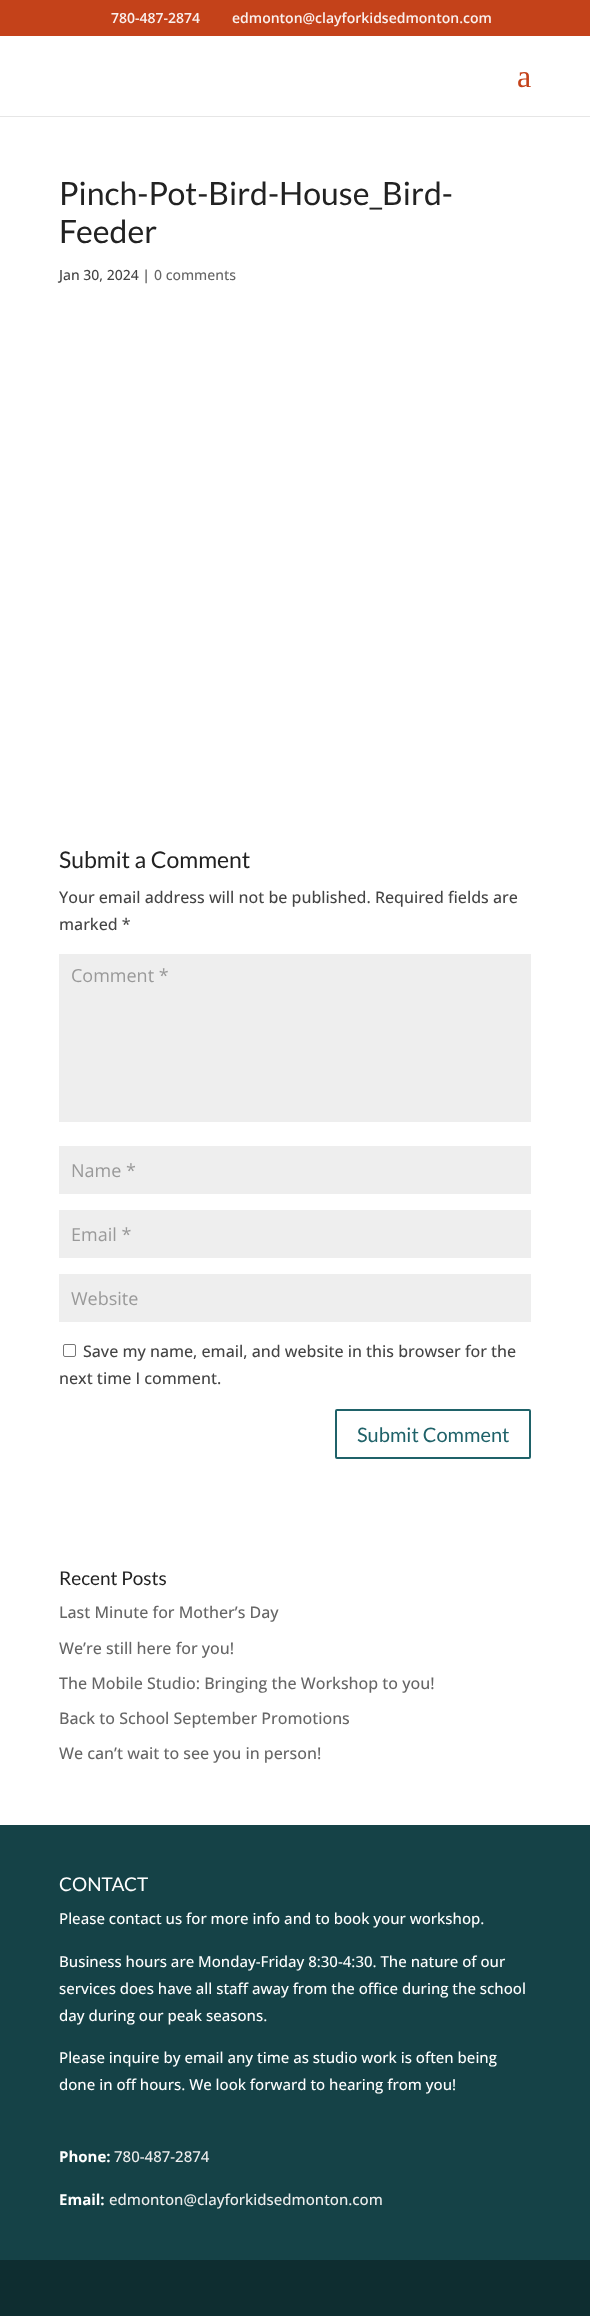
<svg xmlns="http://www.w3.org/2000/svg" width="590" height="2317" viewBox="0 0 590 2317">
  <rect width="100%" height="100%" fill="rgb(255,255,255)"/>
  <rect x="0" y="0" width="590" height="36" fill="rgb(196,66,26)"/>
  <g font-family="Open Sans" font-size="14" font-weight="600" fill="rgb(250,240,237)">
    <text x="111" y="23">780-487-2874</text>
    <text x="232" y="23">edmonton@clayforkidsedmonton.com</text>
  </g>
  <rect x="0" y="116" width="590" height="1" fill="rgb(230,230,230)"/>
  <text x="517" y="87" font-family="Liberation Serif" font-size="32" fill="rgb(196,66,26)">a</text>
  <g font-family="Lato" font-size="32" fill="rgb(34,34,34)">
    <text>
      <tspan x="59" y="205">Pinch-Pot-Bird-House_Bird-</tspan>
      <tspan x="59" y="243">Feeder</tspan>
    </text>
  </g>
  <text x="59" y="280" font-family="Open Sans" font-size="14" font-weight="500" fill="rgb(68,68,68)">Jan 30, 2024 |</text>
  <text x="154" y="280" font-family="Open Sans" font-size="14" font-weight="500" fill="rgb(102,102,102)">0 comments</text>
  <text x="59" y="868" font-family="Lato" font-size="23" fill="rgb(34,34,34)">Submit a Comment</text>
  <g font-family="Open Sans" font-size="16" font-weight="500" fill="rgb(68,68,68)">
    <text>
      <tspan x="59" y="903">Your email address will not be published. Required fields are</tspan>
      <tspan x="59" y="930">marked *</tspan>
    </text>
  </g>
  <rect x="59" y="954" width="472" height="168" fill="rgb(238,238,238)"/>
  <text x="71" y="982" font-family="Open Sans" font-size="18" fill="rgb(153,153,153)">Comment *</text>
  <rect x="59" y="1146" width="472" height="48" fill="rgb(238,238,238)"/>
  <text x="71" y="1177" font-family="Open Sans" font-size="18" fill="rgb(153,153,153)">Name *</text>
  <rect x="59" y="1210" width="472" height="48" fill="rgb(238,238,238)"/>
  <text x="71" y="1241" font-family="Open Sans" font-size="18" fill="rgb(153,153,153)">Email *</text>
  <rect x="59" y="1274" width="472" height="48" fill="rgb(238,238,238)"/>
  <text x="71" y="1305" font-family="Open Sans" font-size="18" fill="rgb(153,153,153)">Website</text>
  <rect x="63.5" y="1344.5" width="12" height="12" rx="1.5" fill="none" stroke="rgb(118,118,118)"/>
  <g font-family="Open Sans" font-size="16" font-weight="500" fill="rgb(68,68,68)">
    <text x="83" y="1357">Save my name, email, and website in this browser for the</text>
    <text x="59" y="1384">next time I comment.</text>
  </g>
  <rect x="336" y="1410" width="194" height="48" rx="1" fill="none" stroke="rgb(31,98,105)" stroke-width="2"/>
  <text x="357" y="1442" font-family="Lato" font-size="20" fill="rgb(31,98,105)">Submit Comment</text>
  <text x="59" y="1585" font-family="Lato" font-size="19" fill="rgb(34,34,34)">Recent Posts</text>
  <g font-family="Open Sans" font-size="16" font-weight="500" fill="rgb(102,102,102)">
    <text x="59" y="1618">Last Minute for Mother’s Day</text>
    <text x="59" y="1654">We’re still here for you!</text>
    <text x="59" y="1689">The Mobile Studio: Bringing the Workshop to you!</text>
    <text x="59" y="1724">Back to School September Promotions</text>
    <text x="59" y="1759">We can’t wait to see you in person!</text>
  </g>
  <rect x="0" y="1825" width="590" height="435" fill="rgb(21,66,71)"/>
  <text x="59" y="1891" font-family="Lato" font-size="19" fill="rgb(255,255,255)">CONTACT</text>
  <g font-family="Open Sans" font-size="15" font-weight="500" fill="rgb(255,255,255)">
    <text x="59" y="1924">Please contact us for more info and to book your workshop.</text>
    <text>
      <tspan x="59" y="1967">Business hours are Monday-Friday 8:30-4:30. The nature of our</tspan>
      <tspan x="59" y="1994">services does have all staff away from the office during the school</tspan>
      <tspan x="59" y="2021">day during our peak seasons.</tspan>
    </text>
    <text>
      <tspan x="59" y="2063">Please inquire by email any time as studio work is often being</tspan>
      <tspan x="59" y="2090">done in off hours. We look forward to hearing from you!</tspan>
    </text>
  </g>
  <text x="59" y="2162" font-family="Open Sans" font-size="15" font-weight="bold" fill="rgb(255,255,255)">Phone:</text>
  <text x="114" y="2162" font-family="Open Sans" font-size="15" font-weight="500" fill="rgb(238,238,238)">780-487-2874</text>
  <text x="59" y="2205" font-family="Open Sans" font-size="15" font-weight="bold" fill="rgb(255,255,255)">Email:</text>
  <text x="109" y="2205" font-family="Open Sans" font-size="15" font-weight="500" fill="rgb(238,238,238)">edmonton@clayforkidsedmonton.com</text>
  <rect x="0" y="2260" width="590" height="56" fill="rgb(14,45,48)"/>
</svg>
